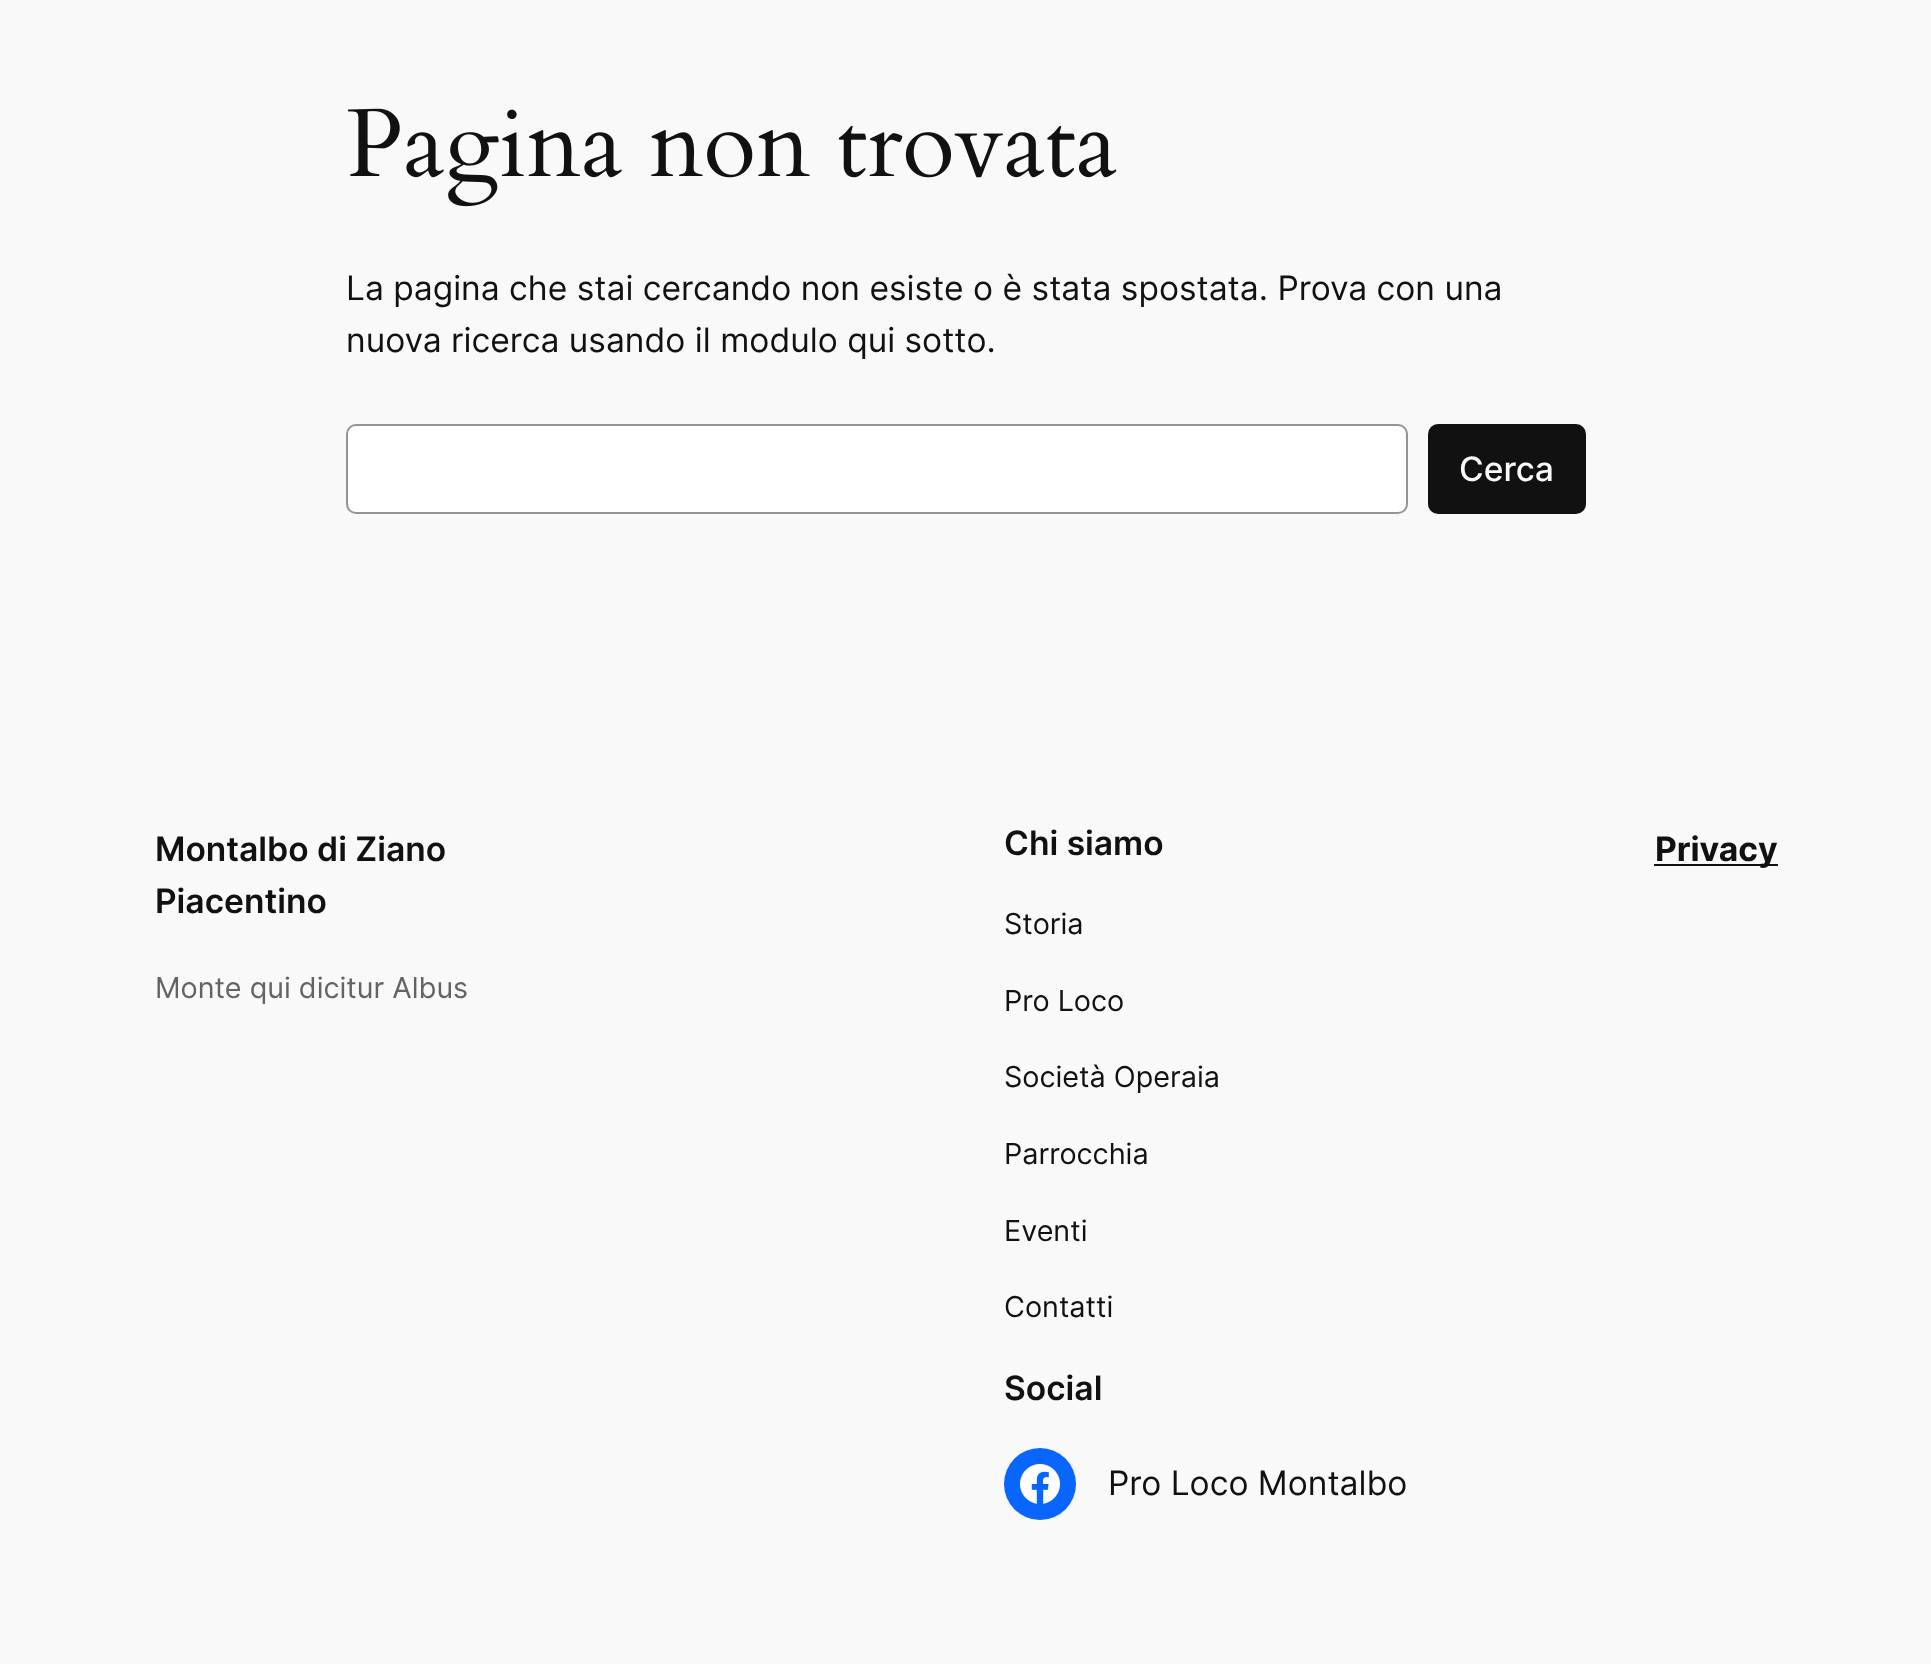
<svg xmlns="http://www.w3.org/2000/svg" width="1931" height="1664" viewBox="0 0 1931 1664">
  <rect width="100%" height="100%" fill="rgb(249,249,249)"/>
  <image x="347" y="108" width="770" height="99" href="pic1.png"/>
  <g font-family="Inter" font-size="33.6" fill="rgb(17,17,17)">
    <text>
      <tspan x="346" y="300">La pagina che stai cercando non esiste o è stata spostata. Prova con una</tspan>
      <tspan x="346" y="352">nuova ricerca usando il modulo qui sotto.</tspan>
    </text>
  </g>
  <rect x="347" y="425" width="1060" height="88" rx="9" fill="rgb(255,255,255)" stroke="rgb(148,148,148)" stroke-width="2"/>
  <rect x="1428" y="424" width="158" height="90" rx="10" fill="rgb(17,17,17)"/>
  <text x="1459" y="481" font-family="Inter" font-size="33.6" font-weight="500" fill="rgb(249,249,249)">Cerca</text>
  <g font-family="Inter" font-size="33.6" font-weight="600" fill="rgb(17,17,17)">
    <text>
      <tspan x="155" y="861">Montalbo di Ziano</tspan>
      <tspan x="155" y="913">Piacentino</tspan>
    </text>
  </g>
  <text x="155" y="998" font-family="Inter" font-size="28.75" fill="rgb(99,99,99)">Monte qui dicitur Albus</text>
  <text x="1004" y="855" font-family="Inter" font-size="33.6" font-weight="600" fill="rgb(17,17,17)">Chi siamo</text>
  <g font-family="Inter" font-size="28.75" fill="rgb(17,17,17)">
    <text x="1004" y="934">Storia</text>
    <text x="1004" y="1011">Pro Loco</text>
    <text x="1004" y="1087">Società Operaia</text>
    <text x="1004" y="1164">Parrocchia</text>
    <text x="1004" y="1241">Eventi</text>
    <text x="1004" y="1317">Contatti</text>
  </g>
  <rect x="1654" y="864" width="124" height="2" fill="rgb(17,17,17)"/>
  <text x="1655" y="861" font-family="Inter" font-size="33.6" font-weight="bold" fill="rgb(17,17,17)">Privacy</text>
  <text x="1004" y="1400" font-family="Inter" font-size="33.6" font-weight="600" fill="rgb(17,17,17)">Social</text>
  <circle cx="1040" cy="1484" r="36" fill="rgb(8,102,255)"/>
  <image x="1020" y="1464" width="40" height="40" href="pic2.png"/>
  <text x="1108" y="1495" font-family="Inter" font-size="33.6" fill="rgb(17,17,17)">Pro Loco Montalbo</text>
</svg>
